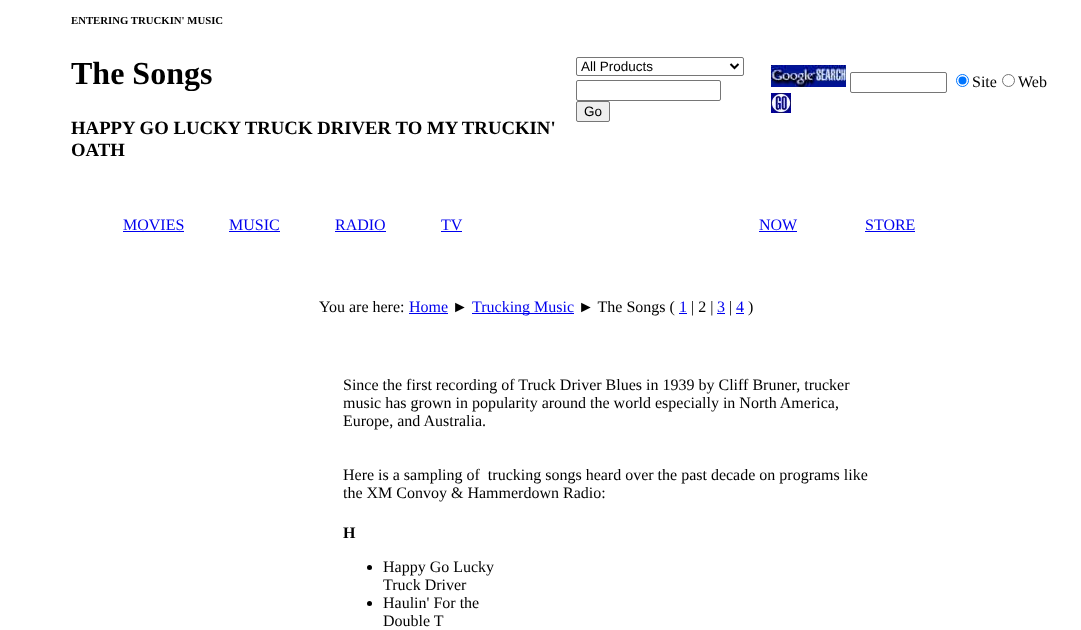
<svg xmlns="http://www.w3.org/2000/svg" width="1081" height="630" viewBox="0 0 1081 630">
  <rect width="100%" height="100%" fill="rgb(255,255,255)"/>
  <text x="71" y="24" font-family="Liberation Serif" font-size="10.75" font-weight="bold" fill="rgb(0,0,0)">ENTERING TRUCKIN' MUSIC</text>
  <text x="71" y="84" font-family="Liberation Serif" font-size="32" font-weight="bold" fill="rgb(0,0,0)">The Songs</text>
  <g font-family="Liberation Serif" font-size="18.75" font-weight="bold" fill="rgb(0,0,0)">
    <text>
      <tspan x="71" y="134">HAPPY GO LUCKY TRUCK DRIVER TO MY TRUCKIN'</tspan>
      <tspan x="71" y="156">OATH</tspan>
    </text>
  </g>
  <rect x="576.5" y="57.5" width="167" height="18" rx="1.5" fill="none" stroke="rgb(118,118,118)"/>
  <path d="M730.5 64L734.5 68L738.5 64" fill="none" stroke="rgb(0,0,0)" stroke-width="2"/>
  <text x="581" y="71" font-family="Liberation Sans" font-size="13.5" fill="rgb(0,0,0)">All Products</text>
  <rect x="576.5" y="80.5" width="144" height="20" rx="1.5" fill="none" stroke="rgb(118,118,118)"/>
  <rect x="576.5" y="101.5" width="33" height="20" rx="1.5" fill="rgb(239,239,239)" stroke="rgb(118,118,118)"/>
  <text x="584" y="116" font-family="Liberation Sans" font-size="13.5" fill="rgb(0,0,0)">Go</text>
  <image x="771" y="65" width="75" height="22" href="pic1.png"/>
  <rect x="850.5" y="72.5" width="96" height="20" rx="1.5" fill="none" stroke="rgb(118,118,118)"/>
  <circle cx="962.5" cy="80.5" r="6" fill="none" stroke="rgb(0,117,255)"/>
  <circle cx="962.5" cy="80.5" r="4" fill="rgb(0,117,255)"/>
  <text x="972" y="87" font-family="Liberation Serif" font-size="16" fill="rgb(0,0,0)">Site</text>
  <circle cx="1008.5" cy="80.5" r="6" fill="none" stroke="rgb(118,118,118)"/>
  <text x="1018" y="87" font-family="Liberation Serif" font-size="16" fill="rgb(0,0,0)">Web</text>
  <image x="771" y="93" width="20" height="20" href="pic2.png"/>
  <text x="123" y="230" font-family="Liberation Serif" font-size="16" fill="rgb(0,0,238)">MOVIES</text>
  <rect x="123" y="231" width="61" height="1" fill="rgb(0,0,238)"/>
  <text x="229" y="230" font-family="Liberation Serif" font-size="16" fill="rgb(0,0,238)">MUSIC</text>
  <rect x="229" y="231" width="51" height="1" fill="rgb(0,0,238)"/>
  <text x="335" y="230" font-family="Liberation Serif" font-size="16" fill="rgb(0,0,238)">RADIO</text>
  <rect x="335" y="231" width="51" height="1" fill="rgb(0,0,238)"/>
  <text x="441" y="230" font-family="Liberation Serif" font-size="16" fill="rgb(0,0,238)">TV</text>
  <rect x="441" y="231" width="21" height="1" fill="rgb(0,0,238)"/>
  <text x="759" y="230" font-family="Liberation Serif" font-size="16" fill="rgb(0,0,238)">NOW</text>
  <rect x="759" y="231" width="38" height="1" fill="rgb(0,0,238)"/>
  <text x="865" y="230" font-family="Liberation Serif" font-size="16" fill="rgb(0,0,238)">STORE</text>
  <rect x="865" y="231" width="50" height="1" fill="rgb(0,0,238)"/>
  <text x="319" y="312" font-family="Liberation Serif" font-size="16" fill="rgb(0,0,0)">You are here:</text>
  <text x="409" y="312" font-family="Liberation Serif" font-size="16" fill="rgb(0,0,238)">Home</text>
  <rect x="409" y="313" width="39" height="1" fill="rgb(0,0,238)"/>
  <text x="452" y="312" font-family="Liberation Serif" font-size="16" fill="rgb(0,0,0)">►</text>
  <rect x="472" y="313" width="102" height="1" fill="rgb(0,0,238)"/>
  <text x="472" y="312" font-family="Liberation Serif" font-size="16" fill="rgb(0,0,238)">Trucking Music</text>
  <text x="578" y="312" font-family="Liberation Serif" font-size="16" fill="rgb(0,0,0)">► The Songs (</text>
  <text x="679" y="312" font-family="Liberation Serif" font-size="16" fill="rgb(0,0,238)">1</text>
  <rect x="679" y="313" width="8" height="1" fill="rgb(0,0,238)"/>
  <text x="691" y="312" font-family="Liberation Serif" font-size="16" fill="rgb(0,0,0)">| 2 |</text>
  <text x="717" y="312" font-family="Liberation Serif" font-size="16" fill="rgb(0,0,238)">3</text>
  <rect x="717" y="313" width="8" height="1" fill="rgb(0,0,238)"/>
  <text x="729" y="312" font-family="Liberation Serif" font-size="16" fill="rgb(0,0,0)">|</text>
  <text x="736" y="312" font-family="Liberation Serif" font-size="16" fill="rgb(0,0,238)">4</text>
  <rect x="736" y="313" width="8" height="1" fill="rgb(0,0,238)"/>
  <g font-family="Liberation Serif" font-size="16" fill="rgb(0,0,0)">
    <text x="748" y="312">)</text>
    <text>
      <tspan x="343" y="390">Since the first recording of Truck Driver Blues in 1939 by Cliff Bruner, trucker</tspan>
      <tspan x="343" y="408">music has grown in popularity around the world especially in North America,</tspan>
      <tspan x="343" y="426">Europe, and Australia.</tspan>
    </text>
    <text xml:space="preserve"><tspan x="343" y="480">Here is a sampling of  trucking songs heard over the past decade on programs like</tspan><tspan x="343" y="498">the XM Convoy &amp; Hammerdown Radio:</tspan></text>
  </g>
  <text x="343" y="538" font-family="Liberation Serif" font-size="16" font-weight="bold" fill="rgb(0,0,0)">H</text>
  <circle cx="369.5" cy="567.5" r="2.5" fill="rgb(0,0,0)"/>
  <g font-family="Liberation Serif" font-size="16" fill="rgb(0,0,0)">
    <text>
      <tspan x="383" y="572">Happy Go Lucky</tspan>
      <tspan x="383" y="590">Truck Driver</tspan>
    </text>
  </g>
  <circle cx="369.5" cy="603.5" r="2.5" fill="rgb(0,0,0)"/>
  <g font-family="Liberation Serif" font-size="16" fill="rgb(0,0,0)">
    <text>
      <tspan x="383" y="608">Haulin' For the</tspan>
      <tspan x="383" y="626">Double T</tspan>
    </text>
  </g>
</svg>
